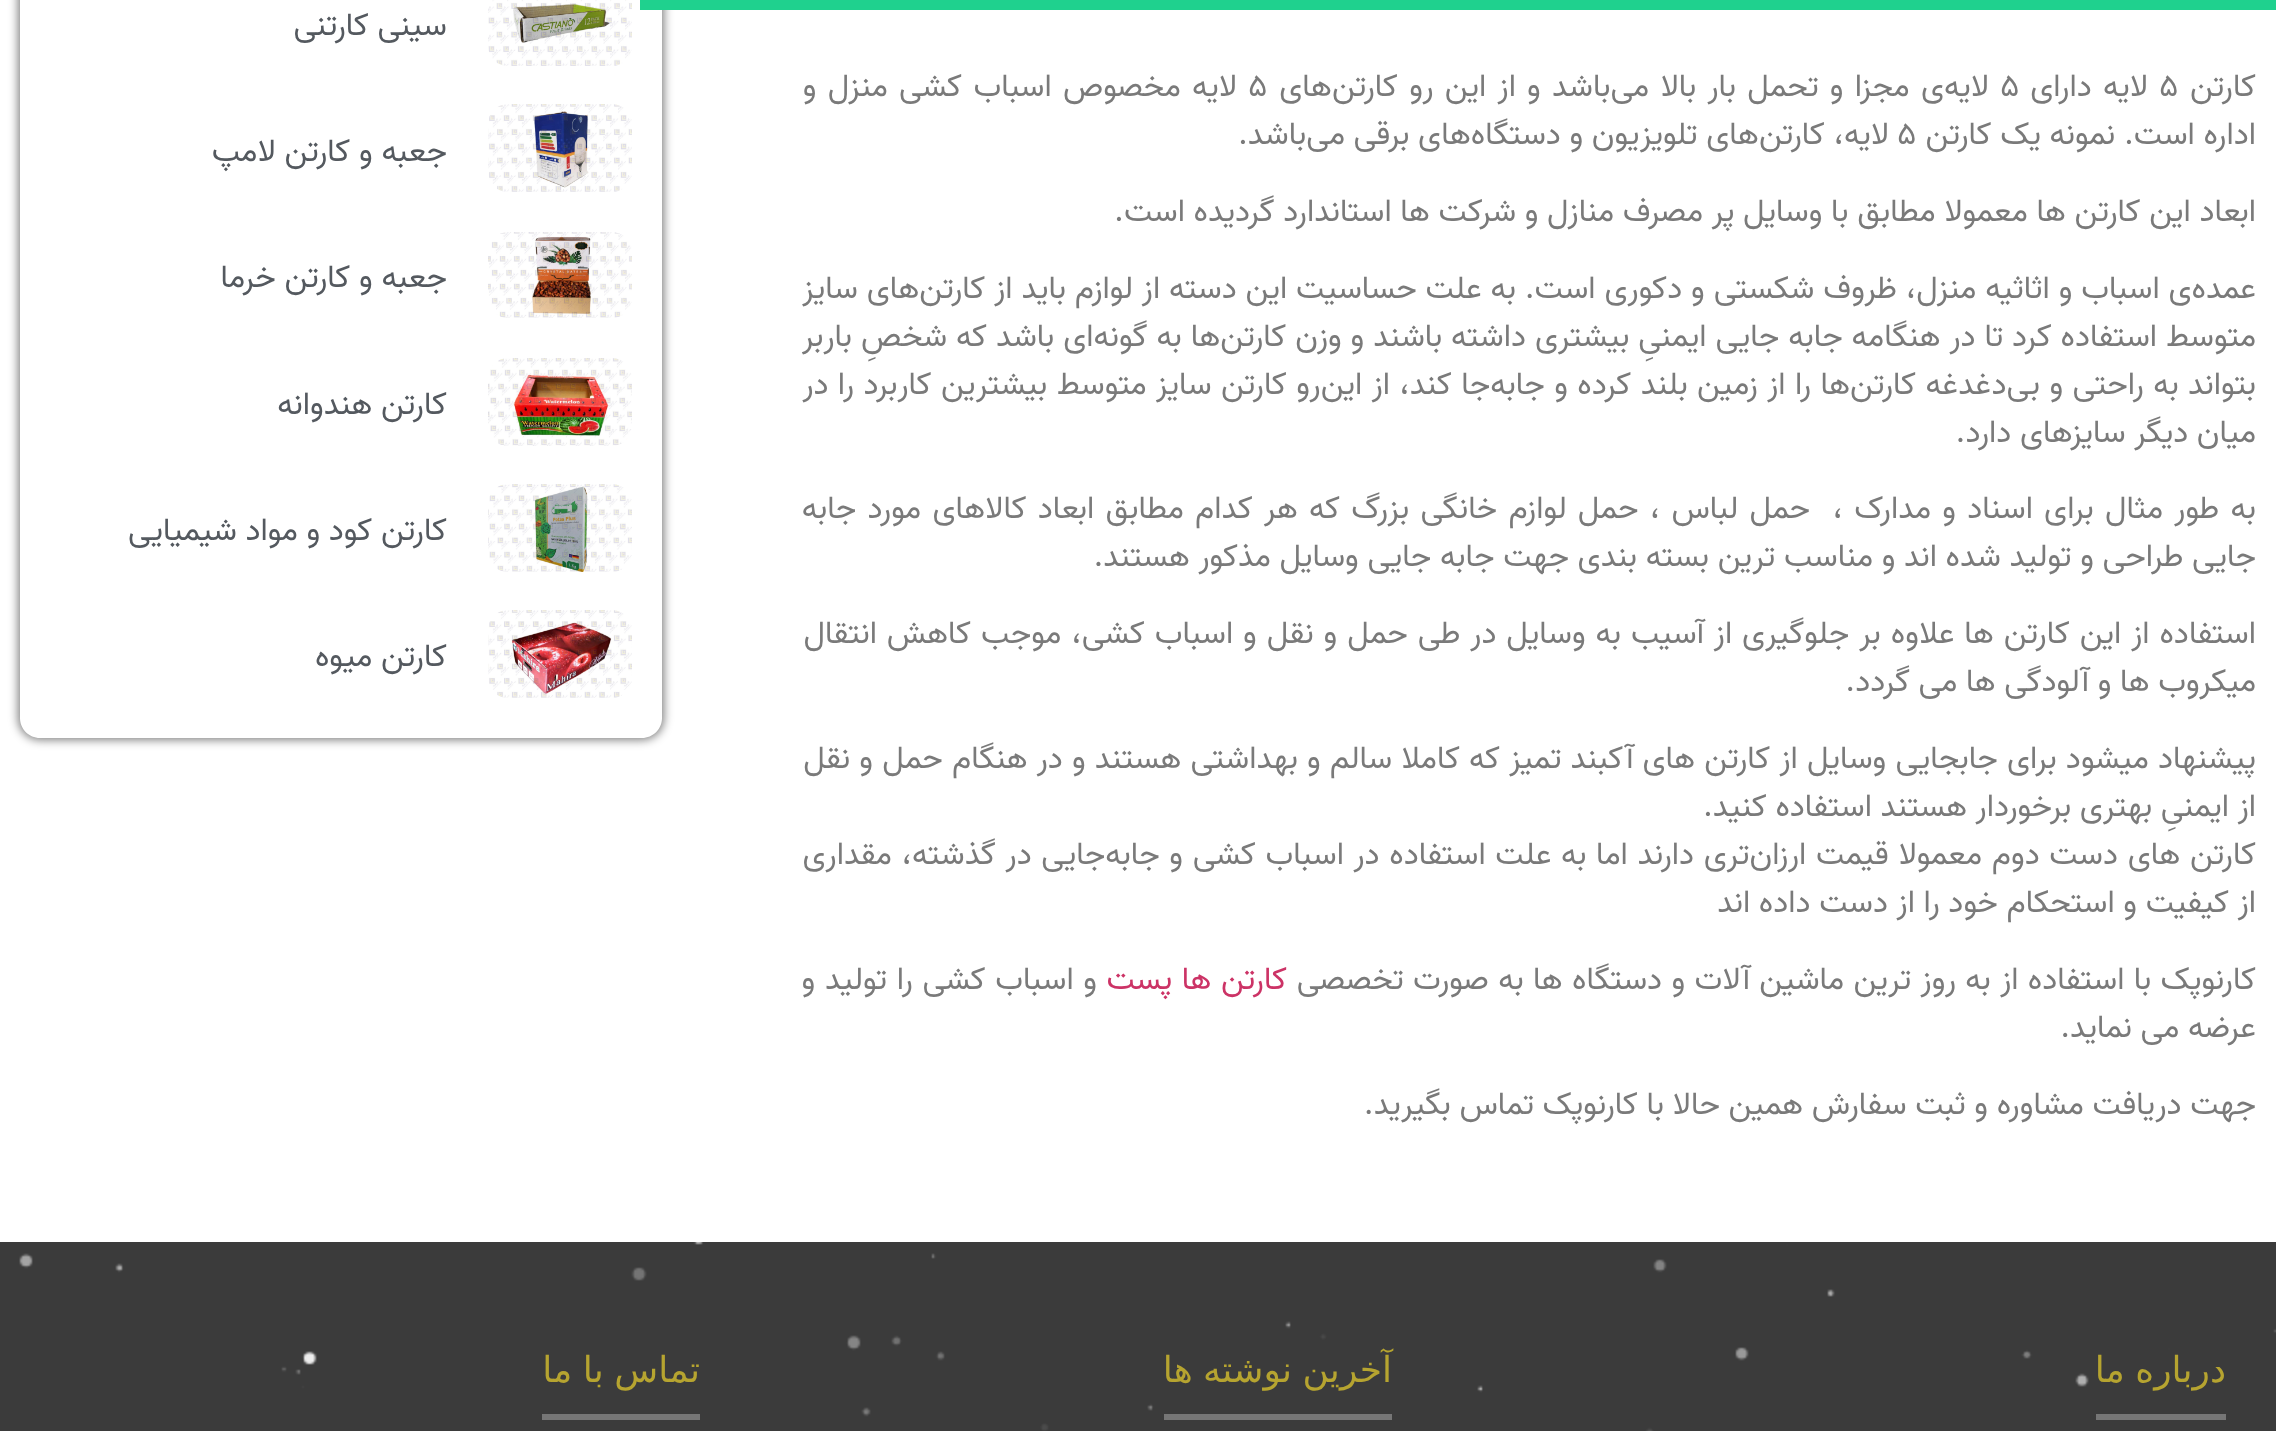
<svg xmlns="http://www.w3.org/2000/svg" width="2276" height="1431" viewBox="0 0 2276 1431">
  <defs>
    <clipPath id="clip1"><path d="M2 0H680V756H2ZM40-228H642C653-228 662-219 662-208V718C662 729 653 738 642 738H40C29 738 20 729 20 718V-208C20-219 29-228 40-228Z" clip-rule="evenodd"/></clipPath>
  </defs>
  <rect width="100%" height="100%" fill="rgb(255,255,255)"/>
  <g clip-path="url(#clip1)">
    <rect x="18" y="-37" width="646" height="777" rx="22" fill="rgba(0,0,0,0.5)" filter="blur(5px)"/>
  </g>
  <rect x="640" y="0" width="1636" height="10" fill="rgb(31,209,142)"/>
  <text x="2256" y="96" font-family="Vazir" font-size="32" direction="rtl" fill="rgb(122,122,122)">کارتن</text>
  <text x="2159" y="96" font-family="Vazir" font-size="32" fill="rgb(122,122,122)">۵</text>
  <text x="2148" y="96" word-spacing="2.6" font-family="Vazir" font-size="32" direction="rtl" fill="rgb(122,122,122)">لایه دارای</text>
  <text x="2000" y="96" font-family="Vazir" font-size="32" fill="rgb(122,122,122)">۵</text>
  <text x="1989" y="96" word-spacing="2.6" font-family="Vazir" font-size="32" direction="rtl" fill="rgb(122,122,122)">لایه‌ی مجزا و تحمل بار بالا می‌باشد و از این رو کارتن‌های</text>
  <text x="1248" y="96" font-family="Vazir" font-size="32" fill="rgb(122,122,122)">۵</text>
  <g font-family="Vazir" font-size="32" direction="rtl" fill="rgb(122,122,122)">
    <text x="1237" y="96" word-spacing="2.6">لایه مخصوص اسباب کشی منزل و</text>
    <text x="2256" y="144">اداره است. نمونه یک کارتن</text>
  </g>
  <text x="1897" y="144" font-family="Vazir" font-size="32" fill="rgb(122,122,122)">۵</text>
  <g font-family="Vazir" font-size="32" direction="rtl" fill="rgb(122,122,122)">
    <text x="1889" y="144">لایه، کارتن‌های تلویزیون و دستگاه‌های برقی می‌باشد.</text>
    <text x="2256" y="221">ابعاد این کارتن ها معمولا مطابق با وسایل پر مصرف منازل و شرکت ها استاندارد گردیده است.</text>
    <text>
      <tspan x="2256" y="298" word-spacing="0.25">عمده‌ی اسباب و اثاثیه منزل، ظروف شکستی و دکوری است. به علت حساسیت این دسته از لوازم باید از کارتن‌های سایز</tspan>
      <tspan x="2256" y="346" word-spacing="0.25">متوسط استفاده کرد تا در هنگامه جابه جایی ایمنیِ بیشتری داشته باشند و وزن کارتن‌ها به گونه‌ای باشد که شخصِ باربر</tspan>
      <tspan x="2256" y="394" word-spacing="0.75">بتواند به راحتی و بی‌دغدغه کارتن‌ها را از زمین بلند کرده و جابه‌جا کند، از این‌رو کارتن سایز متوسط بیشترین کاربرد را در</tspan>
      <tspan x="2256" y="442">میان دیگر سایزهای دارد.</tspan>
    </text>
    <text xml:space="preserve"><tspan x="2256" y="518" word-spacing="2.6">به طور مثال برای اسناد و مدارک ،  حمل لباس ، حمل لوازم خانگی بزرگ که هر کدام مطابق ابعاد کالاهای مورد جابه</tspan><tspan x="2256" y="566">جایی طراحی و تولید شده اند و مناسب ترین بسته بندی جهت جابه جایی وسایل مذکور هستند.</tspan></text>
    <text>
      <tspan x="2256" y="643" word-spacing="1.3">استفاده از این کارتن ها علاوه بر جلوگیری از آسیب به وسایل در طی حمل و نقل و اسباب کشی، موجب کاهش انتقال</tspan>
      <tspan x="2256" y="691">میکروب ها و آلودگی ها می گردد.</tspan>
    </text>
    <text>
      <tspan x="2256" y="768" word-spacing="0.5">پیشنهاد میشود برای جابجایی وسایل از کارتن های آکبند تمیز که کاملا سالم و بهداشتی هستند و در هنگام حمل و نقل</tspan>
      <tspan x="2256" y="816">از ایمنیِ بهتری برخوردار هستند استفاده کنید.</tspan>
      <tspan x="2256" y="864" word-spacing="1">کارتن های دست دوم معمولا قیمت ارزان‌تری دارند اما به علت استفاده در اسباب کشی و جابه‌جایی در گذشته، مقداری</tspan>
      <tspan x="2256" y="912">از کیفیت و استحکام خود را از دست داده اند</tspan>
    </text>
    <text x="2256" y="989" word-spacing="0.75">کارنوپک با استفاده از به روز ترین ماشین آلات و دستگاه ها به صورت تخصصی</text>
  </g>
  <text x="1287" y="989" word-spacing="1" font-family="Vazir" font-size="32" direction="rtl" fill="rgb(204,51,102)">کارتن ها پست</text>
  <g font-family="Vazir" font-size="32" direction="rtl" fill="rgb(122,122,122)">
    <text x="1097" y="989" word-spacing="1">و اسباب کشی را تولید و</text>
    <text x="2256" y="1037">عرضه می نماید.</text>
    <text x="2256" y="1114">جهت دریافت مشاوره و ثبت سفارش همین حالا با کارنوپک تماس بگیرید.</text>
  </g>
  <image x="488" y="0" width="144" height="66" href="pic1.png"/>
  <text x="447" y="35" font-family="Vazir" font-size="32" direction="rtl" fill="rgb(84,89,95)">سینی کارتنی</text>
  <image x="488" y="104" width="144" height="88" href="pic2.png"/>
  <text x="447" y="161" font-family="Vazir" font-size="32" direction="rtl" fill="rgb(84,89,95)">جعبه و کارتن لامپ</text>
  <image x="488" y="232" width="144" height="86" href="pic3.png"/>
  <text x="447" y="287" font-family="Vazir" font-size="32" direction="rtl" fill="rgb(84,89,95)">جعبه و کارتن خرما</text>
  <image x="488" y="358" width="144" height="88" href="pic4.png"/>
  <text x="447" y="414" font-family="Vazir" font-size="32" direction="rtl" fill="rgb(84,89,95)">کارتن هندوانه</text>
  <image x="488" y="484" width="144" height="88" href="pic5.png"/>
  <text x="447" y="540" font-family="Vazir" font-size="32" direction="rtl" fill="rgb(84,89,95)">کارتن کود و مواد شیمیایی</text>
  <image x="488" y="610" width="144" height="88" href="pic6.png"/>
  <text x="447" y="666" font-family="Vazir" font-size="32" direction="rtl" fill="rgb(84,89,95)">کارتن میوه</text>
  <rect x="0" y="1242" width="2276" height="189" fill="rgb(59,59,59)"/>
  <image x="19" y="1242" width="2257" height="189" href="pic7.png"/>
  <rect x="2096" y="1414" width="130" height="6" fill="rgb(118,118,118)"/>
  <text x="2226" y="1382" word-spacing="-1" font-family="DejaVu Sans" font-size="36" direction="rtl" fill="rgb(182,164,48)">درباره ما</text>
  <rect x="1164" y="1414" width="228" height="6" fill="rgb(118,118,118)"/>
  <text x="1392" y="1382" word-spacing="-1" font-family="DejaVu Sans" font-size="36" direction="rtl" fill="rgb(182,164,48)">آخرین نوشته ها</text>
  <rect x="542" y="1414" width="158" height="6" fill="rgb(118,118,118)"/>
  <text x="700" y="1382" word-spacing="-1" font-family="DejaVu Sans" font-size="36" direction="rtl" fill="rgb(182,164,48)">تماس با ما</text>
</svg>
